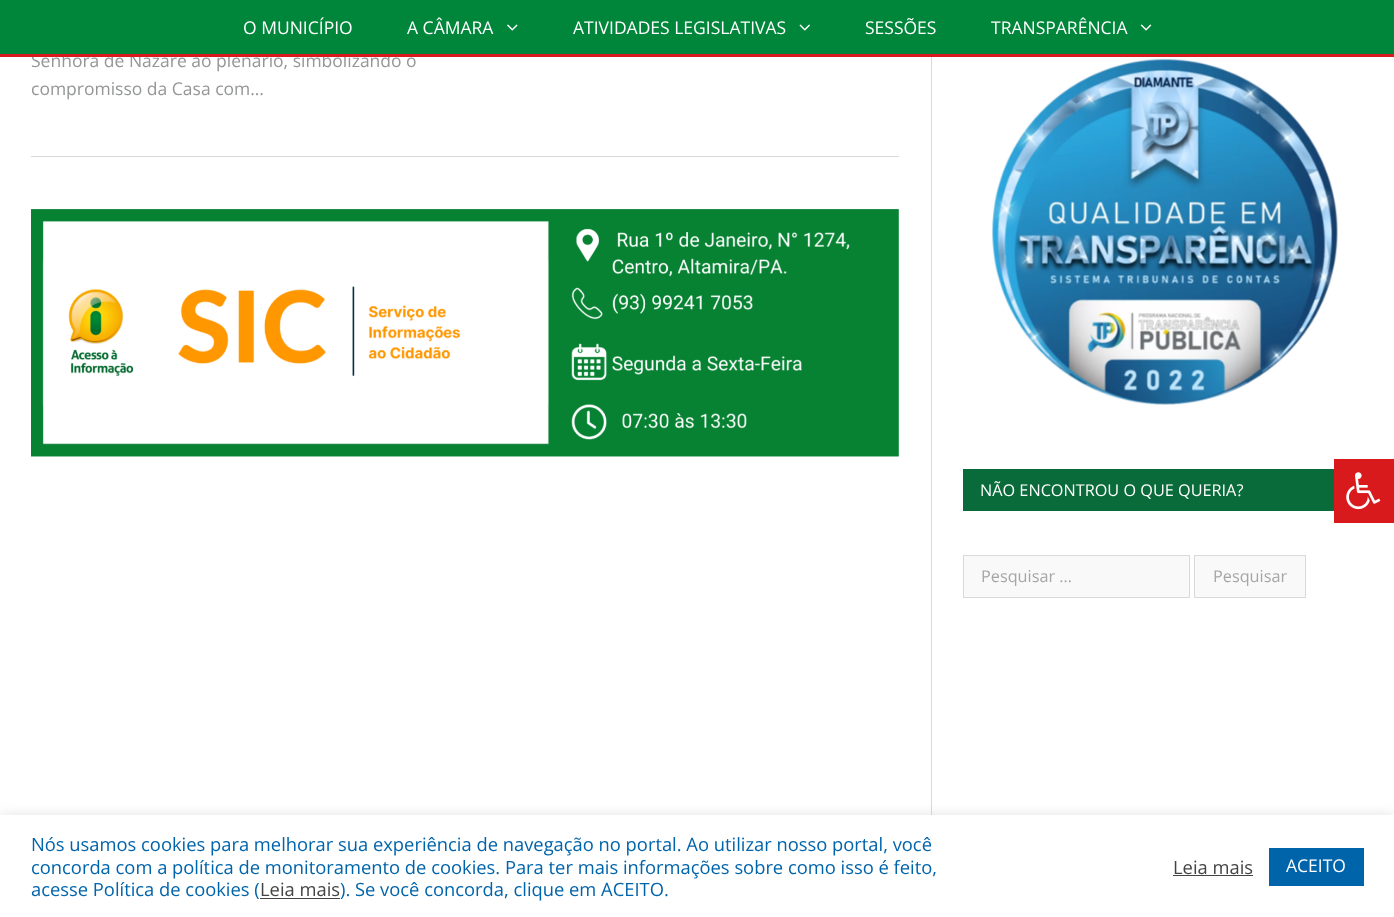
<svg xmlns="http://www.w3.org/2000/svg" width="1394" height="917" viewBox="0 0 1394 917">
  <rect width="100%" height="100%" fill="rgb(255,255,255)"/>
  <text x="31" y="67" font-family="Open Sans" font-size="17.5" fill="rgb(148,150,151)">Senhora de Nazaré ao plenário, simbolizando o</text>
  <rect x="0" y="0" width="1394" height="54" fill="rgb(0,134,58)"/>
  <rect x="0" y="54" width="1394" height="3" fill="rgb(216,26,29)"/>
  <g font-family="Open Sans" font-size="17.5" fill="rgb(255,255,255)">
    <text x="243" y="34">O MUNICÍPIO</text>
    <text x="407" y="34">A CÂMARA</text>
  </g>
  <image x="507" y="24" width="11" height="7" href="pic1.png"/>
  <text x="573" y="34" font-family="Open Sans" font-size="17.5" fill="rgb(255,255,255)">ATIVIDADES LEGISLATIVAS</text>
  <image x="799" y="24" width="11" height="7" href="pic2.png"/>
  <g font-family="Open Sans" font-size="17.5" fill="rgb(255,255,255)">
    <text x="865" y="34">SESSÕES</text>
    <text x="991" y="34">TRANSPARÊNCIA</text>
  </g>
  <image x="1140" y="24" width="12" height="7" href="pic3.png"/>
  <text x="31" y="95" font-family="Open Sans" font-size="17.5" fill="rgb(148,150,151)">compromisso da Casa com…</text>
  <rect x="31" y="156" width="868" height="1" fill="rgb(217,217,217)"/>
  <image x="31" y="209" width="868" height="248" href="pic4.png"/>
  <rect x="931" y="57" width="1" height="758" fill="rgb(217,217,217)"/>
  <image x="992" y="59" width="346" height="346" href="pic5.png"/>
  <rect x="963" y="469" width="371" height="42" fill="rgb(9,107,58)"/>
  <text x="980" y="496" font-family="Open Sans" font-size="16.25" fill="rgb(255,255,255)">NÃO ENCONTROU O QUE QUERIA?</text>
  <rect x="963.5" y="555.5" width="226" height="42" fill="rgb(249,249,249)" stroke="rgb(217,217,217)"/>
  <text x="981" y="582" font-family="Open Sans" font-size="16.25" fill="rgb(166,166,166)">Pesquisar …</text>
  <rect x="1194.5" y="555.5" width="111" height="42" fill="rgb(249,249,249)" stroke="rgb(217,217,217)"/>
  <text x="1213" y="582" font-family="Open Sans" font-size="16.25" fill="rgb(166,166,166)">Pesquisar</text>
  <rect x="1334" y="459" width="60" height="64" fill="rgb(216,26,29)"/>
  <image x="1346" y="472" width="35" height="38" href="pic6.png"/>
  <rect x="0" y="814" width="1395" height="102" fill="rgba(172,171,171,0.3)" filter="blur(6px)"/>
  <rect x="0" y="815" width="1394" height="102" fill="rgb(255,255,255)"/>
  <g font-family="Open Sans" font-size="18.35" fill="rgb(0,100,171)">
    <text>
      <tspan x="31" y="851">Nós usamos cookies para melhorar sua experiência de navegação no portal. Ao utilizar nosso portal, você</tspan>
      <tspan x="31" y="874">concorda com a política de monitoramento de cookies. Para ter mais informações sobre como isso é feito,</tspan>
      <tspan x="31" y="896">acesse Política de cookies (</tspan>
    </text>
  </g>
  <text x="260" y="896" font-family="Open Sans" font-size="18.35" fill="rgb(68,68,68)">Leia mais</text>
  <rect x="260" y="898" width="80" height="1" fill="rgb(68,68,68)"/>
  <text x="340" y="896" font-family="Open Sans" font-size="18.35" fill="rgb(0,100,171)">). Se você concorda, clique em ACEITO.</text>
  <text x="1173" y="874" font-family="Open Sans" font-size="18.35" fill="rgb(68,68,68)">Leia mais</text>
  <rect x="1173" y="875" width="80" height="1" fill="rgb(68,68,68)"/>
  <rect x="1269" y="848" width="95" height="38" fill="rgb(0,100,171)"/>
  <text x="1286" y="872" font-family="Open Sans" font-size="17.5" fill="rgb(255,255,255)">ACEITO</text>
</svg>
